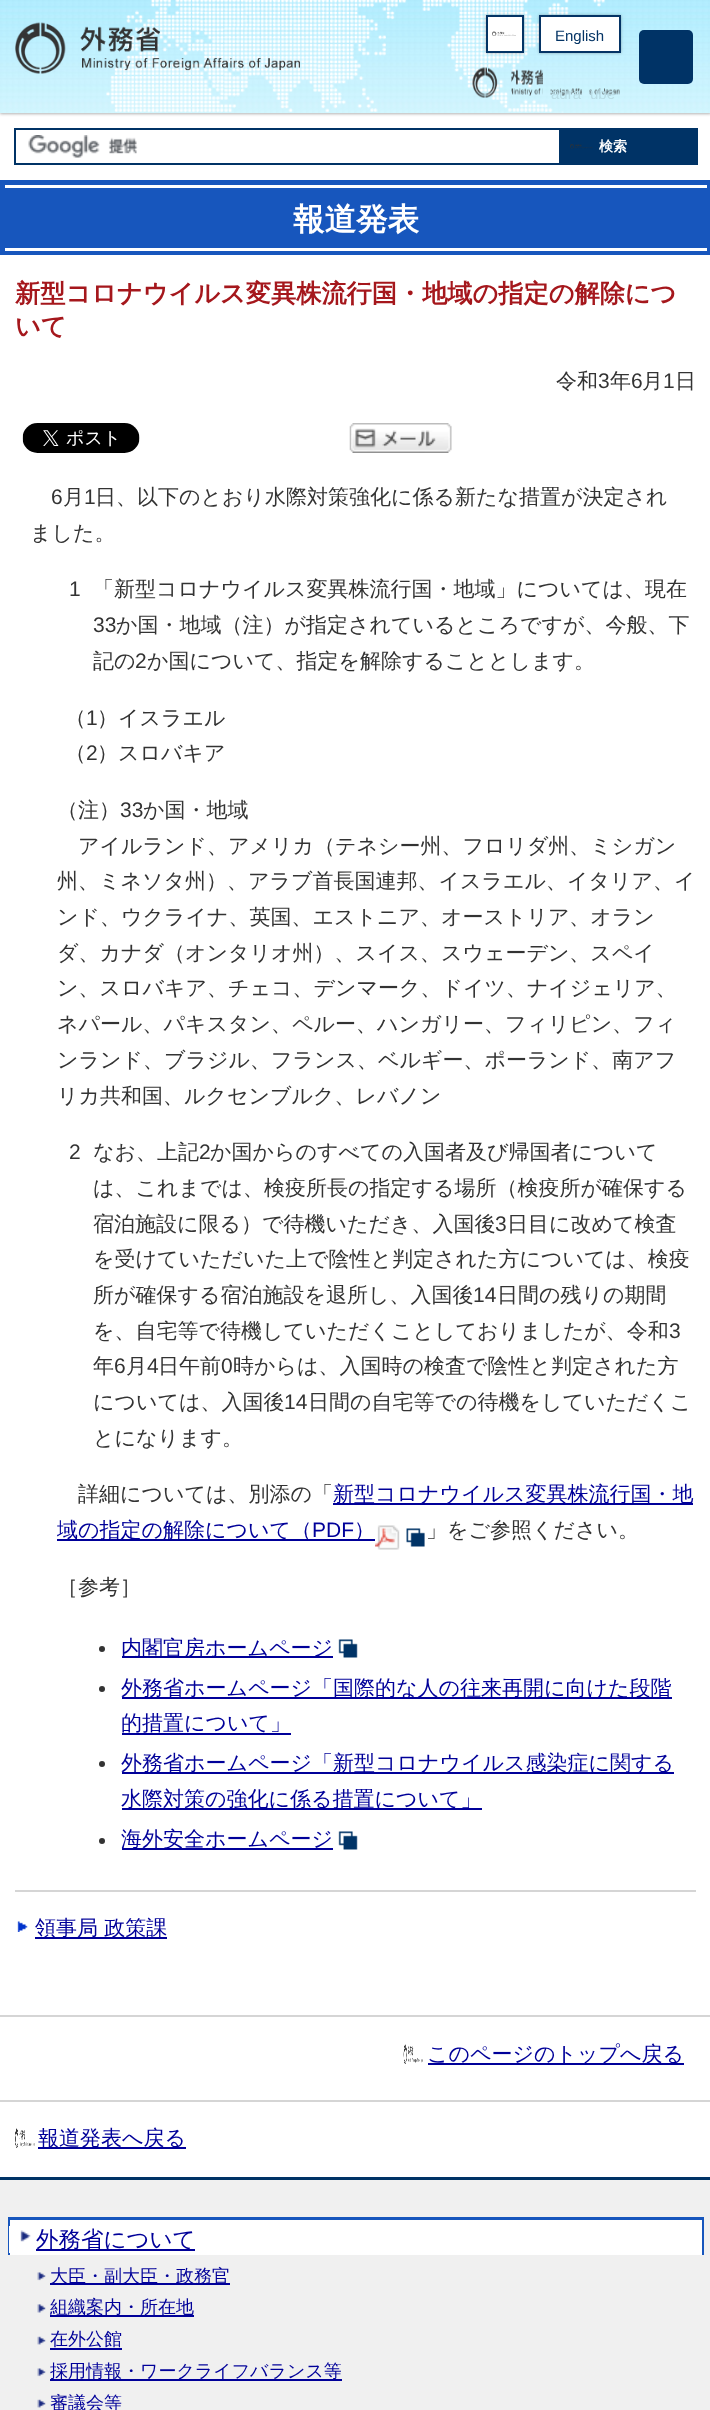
<svg xmlns="http://www.w3.org/2000/svg" width="710" height="2410" viewBox="0 0 710 2410">
  <defs>
    <clipPath id="clip1"><path d="M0 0H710V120H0ZM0 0H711V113H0Z" clip-rule="evenodd"/></clipPath>
    <clipPath id="clip2"><rect x="551" y="68" width="31" height="31"/></clipPath>
    <clipPath id="clip3"><rect x="590" y="68" width="31" height="31"/></clipPath>
  </defs>
  <rect width="100%" height="100%" fill="rgb(255,255,255)"/>
  <image x="0" y="0" width="710" height="113" href="pic1.png"/>
  <g clip-path="url(#clip1)">
    <rect x="0" y="2" width="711" height="112" fill="rgba(0,0,0,0.3)" filter="blur(1.5px)"/>
  </g>
  <image x="106" y="0" width="499" height="113" href="pic2.png"/>
  <image x="15" y="22" width="285" height="52" href="pic3.png"/>
  <rect x="486" y="15" width="38" height="38" fill="rgba(0,0,0,0.3)" filter="blur(1.5px)"/>
  <rect x="488" y="17" width="34" height="34" fill="rgb(255,255,255)"/>
  <image x="492" y="31" width="24" height="5" href="pic4.png"/>
  <rect x="487" y="16" width="36" height="36" fill="none" stroke="rgb(4,52,101)" stroke-width="2"/>
  <rect x="539" y="15" width="82" height="38" fill="rgba(0,0,0,0.3)" filter="blur(1.5px)"/>
  <rect x="540" y="16" width="80" height="36" fill="rgb(255,255,255)" stroke="rgb(4,52,101)" stroke-width="2"/>
  <text x="555" y="41" font-family="Liberation Sans" font-size="15" fill="rgb(4,52,101)">English</text>
  <rect x="639" y="30" width="54" height="54" rx="5" fill="rgb(0,51,102)"/>
  <image x="472" y="67" width="26" height="31" href="pic5.png"/>
  <image x="511" y="69" width="32" height="27" href="pic6.png"/>
  <image x="550" y="88" width="32" height="8" href="pic7.png"/>
  <g clip-path="url(#clip2)">
    <text x="551" y="99" font-family="Liberation Sans" font-size="15" fill="rgb(185,220,229)">agra</text>
  </g>
  <image x="589" y="88" width="31" height="8" href="pic8.png"/>
  <g clip-path="url(#clip3)">
    <text x="590" y="99" font-family="Liberation Sans" font-size="15" fill="rgb(185,220,229)">ube</text>
  </g>
  <image x="28" y="135" width="110" height="23" href="pic9.png"/>
  <rect x="15" y="129" width="545" height="35" fill="none" stroke="rgb(0,51,102)" stroke-width="2"/>
  <rect x="561" y="128" width="137" height="37" fill="rgb(0,51,102)"/>
  <image x="570" y="144" width="23" height="5" href="pic10.png"/>
  <text x="599" y="151" font-family="WenQuanYi Zen Hei" font-size="14" font-weight="bold" fill="rgb(255,255,255)">検索</text>
  <rect x="0" y="180" width="710" height="75" fill="rgb(23,86,189)"/>
  <rect x="5" y="185" width="702" height="3" fill="rgb(255,255,255)"/>
  <rect x="5" y="248" width="702" height="3" fill="rgb(255,255,255)"/>
  <text x="293" y="230" font-family="WenQuanYi Zen Hei" font-size="31.5" font-weight="bold" fill="rgb(255,255,255)">報道発表</text>
  <g font-family="WenQuanYi Zen Hei" font-size="25.2" font-weight="bold" fill="rgb(165,23,28)">
    <text>
      <tspan x="15" y="302">新型コロナウイルス変異株流行国・地域の指定の解除につ</tspan>
      <tspan x="15" y="335">いて</tspan>
    </text>
  </g>
  <text x="556" y="388" font-family="WenQuanYi Zen Hei" font-size="21" font-weight="500" fill="rgb(51,51,51)">令和</text>
  <text x="598" y="388" font-family="Liberation Sans" font-size="21" fill="rgb(51,51,51)">3</text>
  <text x="610" y="388" font-family="WenQuanYi Zen Hei" font-size="21" font-weight="500" fill="rgb(51,51,51)">年</text>
  <text x="631" y="388" font-family="Liberation Sans" font-size="21" fill="rgb(51,51,51)">6</text>
  <text x="642" y="388" font-family="WenQuanYi Zen Hei" font-size="21" font-weight="500" fill="rgb(51,51,51)">月</text>
  <text x="663" y="388" font-family="Liberation Sans" font-size="21" fill="rgb(51,51,51)">1</text>
  <text x="675" y="388" font-family="WenQuanYi Zen Hei" font-size="21" font-weight="500" fill="rgb(51,51,51)">日</text>
  <image x="22" y="423" width="118" height="30" href="pic11.png"/>
  <image x="349" y="423" width="103" height="30" href="pic12.png"/>
  <text x="51" y="504" font-family="Liberation Sans" font-size="21" fill="rgb(51,51,51)">6</text>
  <text x="63" y="504" font-family="WenQuanYi Zen Hei" font-size="21" font-weight="500" fill="rgb(51,51,51)">月</text>
  <text x="84" y="504" font-family="Liberation Sans" font-size="21" fill="rgb(51,51,51)">1</text>
  <g font-family="WenQuanYi Zen Hei" font-size="21" font-weight="500" fill="rgb(51,51,51)">
    <text x="95" y="504">日、以下のとおり水際対策強化に係る新たな措置が決定され</text>
    <text x="30" y="540">ました。</text>
  </g>
  <text x="69" y="596" font-family="Liberation Sans" font-size="21" fill="rgb(51,51,51)">1</text>
  <text x="93" y="596" font-family="WenQuanYi Zen Hei" font-size="21" font-weight="500" fill="rgb(51,51,51)">「新型コロナウイルス変異株流行国・地域」については、現在</text>
  <text x="93" y="632" font-family="Liberation Sans" font-size="21" fill="rgb(51,51,51)">33</text>
  <g font-family="WenQuanYi Zen Hei" font-size="21" font-weight="500" fill="rgb(51,51,51)">
    <text x="116" y="632">か国・地域（注）が指定されているところですが、今般、下</text>
    <text x="93" y="668">記の</text>
  </g>
  <text x="135" y="668" font-family="Liberation Sans" font-size="21" fill="rgb(51,51,51)">2</text>
  <g font-family="WenQuanYi Zen Hei" font-size="21" font-weight="500" fill="rgb(51,51,51)">
    <text x="147" y="668">か国について、指定を解除することとします。</text>
    <text x="65" y="725">（</text>
  </g>
  <text x="86" y="725" font-family="Liberation Sans" font-size="21" fill="rgb(51,51,51)">1</text>
  <g font-family="WenQuanYi Zen Hei" font-size="21" font-weight="500" fill="rgb(51,51,51)">
    <text x="97" y="725">）イスラエル</text>
    <text x="65" y="760">（</text>
  </g>
  <text x="86" y="760" font-family="Liberation Sans" font-size="21" fill="rgb(51,51,51)">2</text>
  <g font-family="WenQuanYi Zen Hei" font-size="21" font-weight="500" fill="rgb(51,51,51)">
    <text x="97" y="760">）スロバキア</text>
    <text x="57" y="817">（注）</text>
  </g>
  <text x="120" y="817" font-family="Liberation Sans" font-size="21" fill="rgb(51,51,51)">33</text>
  <g font-family="WenQuanYi Zen Hei" font-size="21" font-weight="500" fill="rgb(51,51,51)">
    <text x="143" y="817">か国・地域</text>
    <text x="78" y="853">アイルランド、アメリカ（テネシー州、フロリダ州、ミシガン</text>
    <text>
      <tspan x="57" y="888">州、ミネソタ州）、アラブ首長国連邦、イスラエル、イタリア、イ</tspan>
      <tspan x="57" y="924">ンド、ウクライナ、英国、エストニア、オーストリア、オラン</tspan>
      <tspan x="57" y="960">ダ、カナダ（オンタリオ州）、スイス、スウェーデン、スペイ</tspan>
      <tspan x="57" y="995">ン、スロバキア、チェコ、デンマーク、ドイツ、ナイジェリア、</tspan>
      <tspan x="57" y="1031">ネパール、パキスタン、ペルー、ハンガリー、フィリピン、フィ</tspan>
      <tspan x="57" y="1067">ンランド、ブラジル、フランス、ベルギー、ポーランド、南アフ</tspan>
      <tspan x="57" y="1103">リカ共和国、ルクセンブルク、レバノン</tspan>
    </text>
  </g>
  <text x="69" y="1159" font-family="Liberation Sans" font-size="21" fill="rgb(51,51,51)">2</text>
  <text x="93" y="1159" font-family="WenQuanYi Zen Hei" font-size="21" font-weight="500" fill="rgb(51,51,51)">なお、上記</text>
  <text x="199" y="1159" font-family="Liberation Sans" font-size="21" fill="rgb(51,51,51)">2</text>
  <g font-family="WenQuanYi Zen Hei" font-size="21" font-weight="500" fill="rgb(51,51,51)">
    <text x="210" y="1159">か国からのすべての入国者及び帰国者について</text>
    <text>
      <tspan x="93" y="1195">は、これまでは、検疫所長の指定する場所（検疫所が確保する</tspan>
      <tspan x="93" y="1231">宿泊施設に限る）で待機いただき、入国後</tspan>
    </text>
  </g>
  <text x="495" y="1231" font-family="Liberation Sans" font-size="21" fill="rgb(51,51,51)">3</text>
  <g font-family="WenQuanYi Zen Hei" font-size="21" font-weight="500" fill="rgb(51,51,51)">
    <text x="507" y="1231">日目に改めて検査</text>
    <text>
      <tspan x="93" y="1266">を受けていただいた上で陰性と判定された方については、検疫</tspan>
      <tspan x="93" y="1302">所が確保する宿泊施設を退所し、入国後</tspan>
    </text>
  </g>
  <text x="473" y="1302" font-family="Liberation Sans" font-size="21" fill="rgb(51,51,51)">14</text>
  <g font-family="WenQuanYi Zen Hei" font-size="21" font-weight="500" fill="rgb(51,51,51)">
    <text x="497" y="1302">日間の残りの期間</text>
    <text x="93" y="1338">を、自宅等で待機していただくことしておりましたが、令和</text>
  </g>
  <text x="669" y="1338" font-family="Liberation Sans" font-size="21" fill="rgb(51,51,51)">3</text>
  <text x="93" y="1373" font-family="WenQuanYi Zen Hei" font-size="21" font-weight="500" fill="rgb(51,51,51)">年</text>
  <text x="114" y="1373" font-family="Liberation Sans" font-size="21" fill="rgb(51,51,51)">6</text>
  <text x="126" y="1373" font-family="WenQuanYi Zen Hei" font-size="21" font-weight="500" fill="rgb(51,51,51)">月</text>
  <text x="147" y="1373" font-family="Liberation Sans" font-size="21" fill="rgb(51,51,51)">4</text>
  <text x="158" y="1373" font-family="WenQuanYi Zen Hei" font-size="21" font-weight="500" fill="rgb(51,51,51)">日午前</text>
  <text x="221" y="1373" font-family="Liberation Sans" font-size="21" fill="rgb(51,51,51)">0</text>
  <g font-family="WenQuanYi Zen Hei" font-size="21" font-weight="500" fill="rgb(51,51,51)">
    <text x="233" y="1373">時からは、入国時の検査で陰性と判定された方</text>
    <text x="93" y="1409">については、入国後</text>
  </g>
  <text x="284" y="1409" font-family="Liberation Sans" font-size="21" fill="rgb(51,51,51)">14</text>
  <g font-family="WenQuanYi Zen Hei" font-size="21" font-weight="500" fill="rgb(51,51,51)">
    <text x="308" y="1409">日間の自宅等での待機をしていただくこ</text>
    <text x="93" y="1445">とになります。</text>
    <text x="78" y="1501">詳細については、別添の「</text>
  </g>
  <rect x="333" y="1503" width="360" height="2" fill="rgb(0,0,153)"/>
  <text x="333" y="1501" font-family="WenQuanYi Zen Hei" font-size="21" font-weight="500" fill="rgb(0,0,153)">新型コロナウイルス変異株流行国・地</text>
  <rect x="57" y="1539" width="318" height="2" fill="rgb(0,0,153)"/>
  <text x="57" y="1537" font-family="WenQuanYi Zen Hei" font-size="21" font-weight="500" fill="rgb(0,0,153)">域の指定の解除について（</text>
  <text x="312" y="1537" font-family="Liberation Sans" font-size="21" fill="rgb(0,0,153)">PDF</text>
  <text x="354" y="1537" font-family="WenQuanYi Zen Hei" font-size="21" font-weight="500" fill="rgb(0,0,153)">）</text>
  <image x="375" y="1525" width="50" height="25" href="pic13.png"/>
  <g font-family="WenQuanYi Zen Hei" font-size="21" font-weight="500" fill="rgb(51,51,51)">
    <text x="426" y="1537">」をご参照ください。</text>
    <text x="57" y="1594">［参考］</text>
  </g>
  <circle cx="102" cy="1649" r="3" fill="rgb(51,51,51)"/>
  <rect x="122" y="1656" width="211" height="2" fill="rgb(0,0,153)"/>
  <text x="121" y="1655" font-family="WenQuanYi Zen Hei" font-size="21" font-weight="500" fill="rgb(0,0,153)">内閣官房ホームページ</text>
  <image x="338" y="1639" width="20" height="19" href="pic14.png"/>
  <circle cx="102" cy="1689" r="3" fill="rgb(51,51,51)"/>
  <rect x="122" y="1697" width="550" height="2" fill="rgb(0,0,153)"/>
  <g font-family="WenQuanYi Zen Hei" font-size="21" font-weight="500" fill="rgb(0,0,153)">
    <text>
      <tspan x="121" y="1695">外務省ホームページ「国際的な人の往来再開に向けた段階</tspan>
      <tspan x="121" y="1730">的措置について」</tspan>
    </text>
  </g>
  <rect x="122" y="1733" width="169" height="2" fill="rgb(0,0,153)"/>
  <circle cx="102" cy="1764" r="3" fill="rgb(51,51,51)"/>
  <rect x="122" y="1772" width="552" height="2" fill="rgb(0,0,153)"/>
  <text x="121" y="1770" font-family="WenQuanYi Zen Hei" font-size="21" font-weight="500" fill="rgb(0,0,153)">外務省ホームページ「新型コロナウイルス感染症に関する</text>
  <rect x="122" y="1808" width="360" height="2" fill="rgb(0,0,153)"/>
  <text x="121" y="1806" font-family="WenQuanYi Zen Hei" font-size="21" font-weight="500" fill="rgb(0,0,153)">水際対策の強化に係る措置について」</text>
  <circle cx="102" cy="1841" r="3" fill="rgb(51,51,51)"/>
  <rect x="122" y="1848" width="211" height="2" fill="rgb(0,0,153)"/>
  <text x="121" y="1846" font-family="WenQuanYi Zen Hei" font-size="21" font-weight="500" fill="rgb(0,0,153)">海外安全ホームページ</text>
  <image x="338" y="1831" width="20" height="19" href="pic14.png"/>
  <rect x="15" y="1890" width="681" height="2" fill="rgb(213,213,213)"/>
  <image x="17" y="1921" width="11" height="11" href="pic15.png"/>
  <rect x="35" y="1937" width="132" height="2" fill="rgb(0,0,153)"/>
  <text x="35" y="1935" font-family="WenQuanYi Zen Hei" font-size="21" font-weight="500" fill="rgb(0,0,153)">領事局 政策課</text>
  <rect x="0" y="2015" width="710" height="2" fill="rgb(213,213,213)"/>
  <image x="403" y="2044" width="20" height="20" href="pic16.png"/>
  <rect x="428" y="2063" width="256" height="2" fill="rgb(0,0,153)"/>
  <text x="427" y="2061" font-family="WenQuanYi Zen Hei" font-size="21" font-weight="500" fill="rgb(0,0,153)">このページのトップへ戻る</text>
  <rect x="0" y="2100" width="710" height="2" fill="rgb(213,213,213)"/>
  <image x="15" y="2128" width="20" height="20" href="pic17.png"/>
  <rect x="38" y="2147" width="148" height="2" fill="rgb(0,0,153)"/>
  <text x="38" y="2145" font-family="WenQuanYi Zen Hei" font-size="21" font-weight="500" fill="rgb(0,0,153)">報道発表へ戻る</text>
  <rect x="0" y="2180" width="710" height="230" fill="rgb(240,240,240)"/>
  <rect x="0" y="2177" width="710" height="3" fill="rgb(0,51,102)"/>
  <rect x="10" y="2220" width="692" height="35" fill="rgb(255,255,255)"/>
  <rect x="8" y="2217" width="696" height="3" fill="rgb(23,86,189)"/>
  <rect x="702" y="2217" width="2" height="38" fill="rgb(23,86,189)"/>
  <rect x="8" y="2217" width="2" height="38" fill="rgb(23,86,189)"/>
  <image x="9" y="2226" width="22" height="27" href="pic18.png"/>
  <rect x="36" y="2249" width="159" height="2" fill="rgb(0,0,153)"/>
  <text x="36" y="2247" font-family="WenQuanYi Zen Hei" font-size="22.5" font-weight="500" fill="rgb(0,0,153)">外務省について</text>
  <image x="37" y="2272" width="9" height="9" href="pic19.png"/>
  <rect x="50" y="2283" width="180" height="2" fill="rgb(0,0,153)"/>
  <text x="50" y="2282" font-family="WenQuanYi Zen Hei" font-size="18" font-weight="500" fill="rgb(0,0,153)">大臣・副大臣・政務官</text>
  <image x="37" y="2304" width="9" height="9" href="pic20.png"/>
  <rect x="50" y="2315" width="144" height="2" fill="rgb(0,0,153)"/>
  <text x="50" y="2313" font-family="WenQuanYi Zen Hei" font-size="18" font-weight="500" fill="rgb(0,0,153)">組織案内・所在地</text>
  <image x="37" y="2336" width="9" height="9" href="pic21.png"/>
  <text x="50" y="2345" font-family="WenQuanYi Zen Hei" font-size="18" font-weight="500" fill="rgb(0,0,153)">在外公館</text>
  <rect x="50" y="2348" width="72" height="2" fill="rgb(0,0,153)"/>
  <image x="37" y="2368" width="9" height="9" href="pic19.png"/>
  <rect x="50" y="2379" width="292" height="2" fill="rgb(0,0,153)"/>
  <text x="50" y="2377" font-family="WenQuanYi Zen Hei" font-size="18" font-weight="500" fill="rgb(0,0,153)">採用情報・ワークライフバランス等</text>
  <image x="37" y="2399" width="9" height="9" href="pic21.png"/>
  <text x="50" y="2409" font-family="WenQuanYi Zen Hei" font-size="18" font-weight="500" fill="rgb(0,0,153)">審議会等</text>
</svg>
